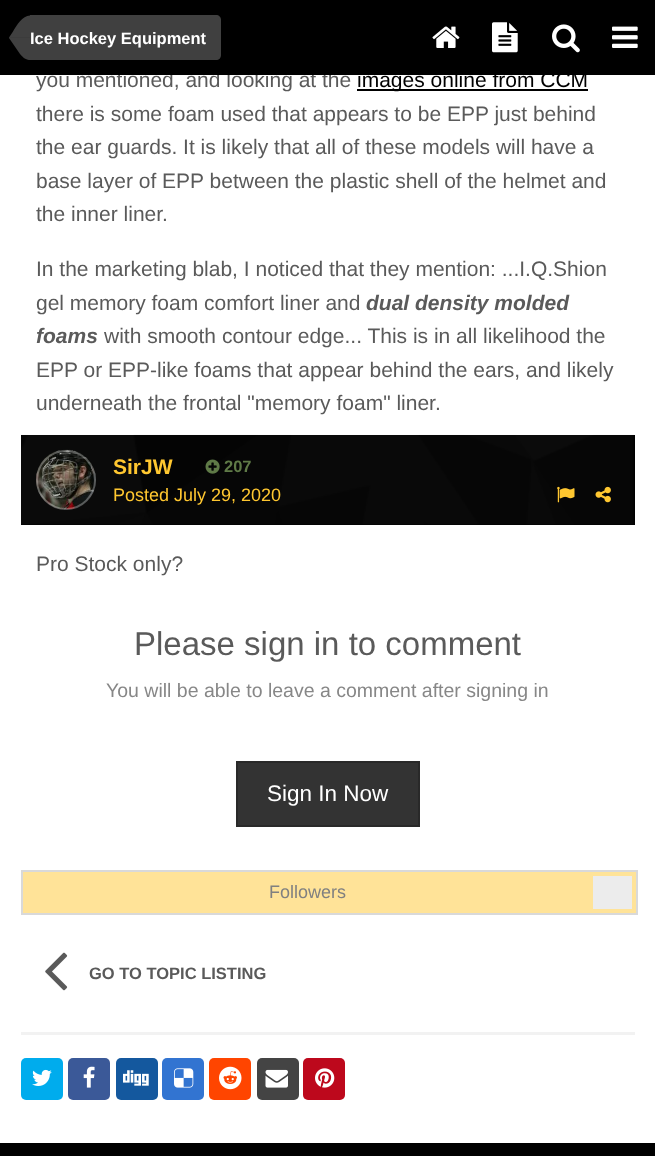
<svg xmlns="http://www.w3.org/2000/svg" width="655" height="1156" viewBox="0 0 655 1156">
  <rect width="100%" height="100%" fill="rgb(0,0,0)"/>
  <rect x="0" y="75" width="655" height="1068" fill="rgb(255,255,255)"/>
  <text x="36" y="87" font-family="Liberation Sans" font-size="21" fill="rgb(90,90,90)">you mentioned, and looking at the</text>
  <rect x="118" y="71" width="214" height="4" fill="rgb(0,0,0)"/>
  <path d="M30 15H216C219 15 221 17 221 20V55C221 58 219 60 216 60H30Z" fill="rgb(64,64,64)"/>
  <path d="M9 37.5H30V60C27 60 23.5 58.5 20 54L9 38Z" fill="rgb(64,64,64)"/>
  <path d="M30 15.5V37.5H9L13 31.5C16.5 25.5 22.5 15.5 30 15.5Z" fill="rgba(255,255,255,0.25)"/>
  <text x="30" y="44" font-family="Liberation Sans" font-size="16.5" font-weight="bold" fill="rgb(255,255,255)">Ice Hockey Equipment</text>
  <image x="432" y="26" width="28" height="22" href="pic1.png"/>
  <image x="492" y="22" width="26" height="31" href="pic2.png"/>
  <image x="552" y="24" width="28" height="29" href="pic3.png"/>
  <image x="612" y="26" width="26" height="22" href="pic4.png"/>
  <rect x="357" y="89" width="231" height="2" fill="rgb(0,0,0)"/>
  <text x="357" y="87" font-family="Liberation Sans" font-size="21" fill="rgb(0,0,0)">images online from CCM</text>
  <g font-family="Liberation Sans" font-size="21" fill="rgb(90,90,90)">
    <text>
      <tspan x="36" y="121">there is some foam used that appears to be EPP just behind</tspan>
      <tspan x="36" y="154">the ear guards. It is likely that all of these models will have a</tspan>
      <tspan x="36" y="188">base layer of EPP between the plastic shell of the helmet and</tspan>
      <tspan x="36" y="221">the inner liner.</tspan>
    </text>
    <text>
      <tspan x="36" y="276">In the marketing blab, I noticed that they mention: ...I.Q.Shion</tspan>
      <tspan x="36" y="310">gel memory foam comfort liner and</tspan>
    </text>
  </g>
  <g font-family="Liberation Sans" font-size="21" font-weight="bold" font-style="italic" fill="rgb(90,90,90)">
    <text x="366" y="310">dual density molded</text>
    <text x="36" y="343">foams</text>
  </g>
  <g font-family="Liberation Sans" font-size="21" fill="rgb(90,90,90)">
    <text x="104" y="343">with smooth contour edge... This is in all likelihood the</text>
    <text>
      <tspan x="36" y="377">EPP or EPP-like foams that appear behind the ears, and likely</tspan>
      <tspan x="36" y="410">underneath the frontal "memory foam" liner.</tspan>
    </text>
  </g>
  <rect x="21" y="435" width="614" height="90" fill="rgb(0,0,0)"/>
  <image x="21" y="434" width="613" height="91" href="pic5.png"/>
  <image x="36" y="449" width="60" height="61" href="pic6.png"/>
  <circle cx="66" cy="480" r="29" fill="none" stroke="rgba(255,255,255,0.3)" stroke-width="2"/>
  <text x="113" y="474" font-family="Liberation Sans" font-size="21" font-weight="bold" fill="rgb(255,199,48)">SirJW</text>
  <image x="205" y="459" width="15" height="15" href="pic7.png"/>
  <text x="224" y="472" font-family="Liberation Sans" font-size="16.5" font-weight="bold" fill="rgb(95,122,71)">207</text>
  <text x="113" y="501" font-family="Liberation Sans" font-size="18" fill="rgb(255,199,48)">Posted July 29, 2020</text>
  <image x="557" y="486" width="18" height="17" href="pic8.png"/>
  <image x="595" y="486" width="16" height="17" href="pic9.png"/>
  <text x="36" y="571" font-family="Liberation Sans" font-size="21" fill="rgb(90,90,90)">Pro Stock only?</text>
  <text x="134" y="655" font-family="Liberation Sans" font-size="33" fill="rgb(90,90,90)">Please sign in to comment</text>
  <text x="106" y="697" font-family="Liberation Sans" font-size="19.5" fill="rgb(135,135,135)">You will be able to leave a comment after signing in</text>
  <rect x="238" y="763" width="180" height="62" fill="rgb(51,51,51)"/>
  <rect x="237" y="762" width="182" height="64" fill="none" stroke="rgb(41,41,41)" stroke-width="2"/>
  <text x="267" y="801" font-family="Liberation Sans" font-size="22.5" fill="rgb(255,255,255)">Sign In Now</text>
  <rect x="23" y="872" width="613" height="41" fill="rgb(255,227,152)"/>
  <rect x="593" y="876" width="39" height="33" fill="rgb(236,236,236)"/>
  <rect x="22" y="871" width="615" height="43" fill="none" stroke="rgb(217,217,217)" stroke-width="2"/>
  <text x="269" y="898" font-family="Liberation Sans" font-size="18" fill="rgb(128,128,128)">Followers</text>
  <image x="45" y="952" width="23" height="39" href="pic10.png"/>
  <text x="89" y="979" font-family="Liberation Sans" font-size="16.5" font-weight="bold" fill="rgb(90,90,90)">GO TO TOPIC LISTING</text>
  <rect x="21" y="1032" width="614" height="3" fill="rgb(242,242,242)"/>
  <rect x="21" y="1058" width="42" height="42" rx="5" fill="rgb(0,172,237)"/>
  <image x="32" y="1069" width="20" height="17" href="pic11.png"/>
  <rect x="68" y="1058" width="42" height="42" rx="5" fill="rgb(59,89,152)"/>
  <image x="83" y="1066" width="12" height="22" href="pic12.png"/>
  <rect x="116" y="1058" width="42" height="42" rx="5" fill="rgb(20,88,158)"/>
  <image x="123" y="1070" width="26" height="16" href="pic13.png"/>
  <rect x="162" y="1058" width="42" height="42" rx="5" fill="rgb(50,116,209)"/>
  <image x="174" y="1068" width="20" height="20" href="pic14.png"/>
  <rect x="209" y="1058" width="42" height="42" rx="5" fill="rgb(255,69,0)"/>
  <image x="219" y="1066" width="23" height="24" href="pic15.png"/>
  <rect x="257" y="1058" width="42" height="42" rx="5" fill="rgb(68,68,68)"/>
  <image x="265" y="1069" width="23" height="19" href="pic16.png"/>
  <rect x="303" y="1058" width="42" height="42" rx="5" fill="rgb(189,8,28)"/>
  <image x="315" y="1068" width="20" height="20" href="pic17.png"/>
</svg>
